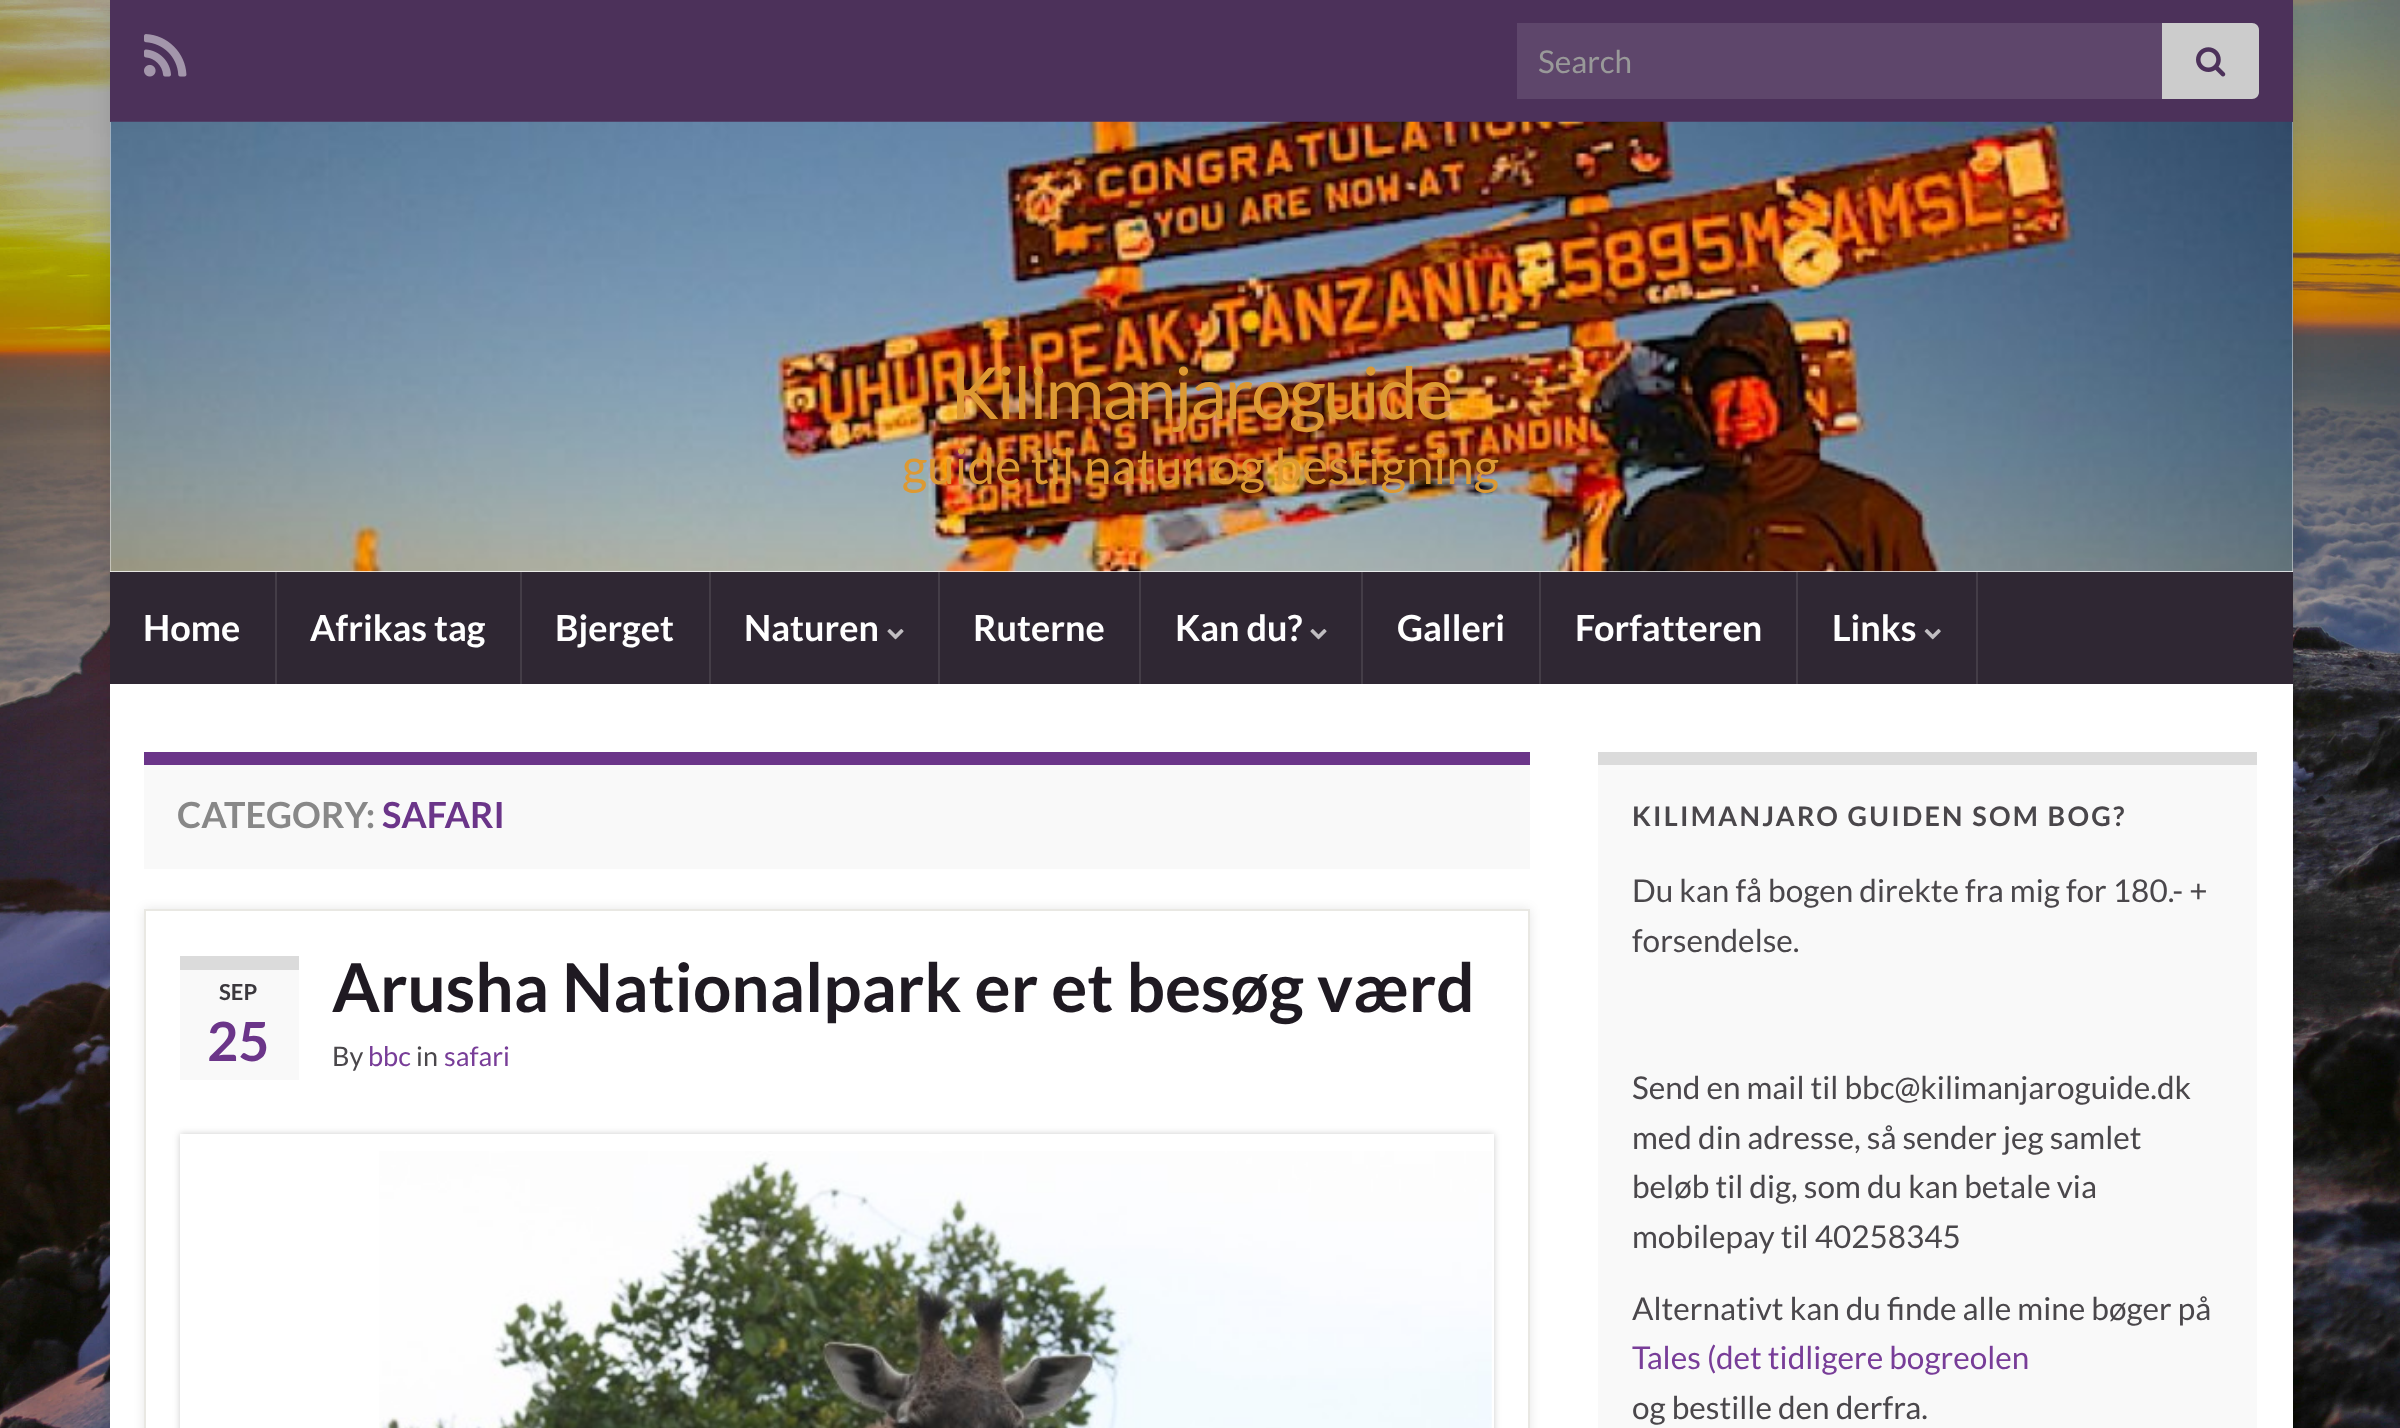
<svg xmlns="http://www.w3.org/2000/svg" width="2400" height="1428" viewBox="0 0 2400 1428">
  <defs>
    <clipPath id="clip1"><path d="M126 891H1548V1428H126ZM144 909H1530V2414H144Z" clip-rule="evenodd"/></clipPath>
    <clipPath id="clip2"><path d="M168 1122H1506V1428H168ZM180 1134H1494V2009H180Z" clip-rule="evenodd"/></clipPath>
  </defs>
  <rect width="100%" height="100%" fill="rgb(255,255,255)"/>
  <image x="0" y="0" width="2400" height="1428" href="pic1.png"/>
  <rect x="110" y="0" width="2183" height="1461" fill="rgba(0,0,0,0.1)" filter="blur(11px)"/>
  <rect x="110" y="0" width="2183" height="122" fill="rgb(76,49,90)"/>
  <image x="144" y="34" width="43" height="43" href="pic2.png"/>
  <rect x="1517" y="23" width="645" height="76" fill="rgb(94,70,107)"/>
  <text x="1538" y="73" font-family="Lato" font-size="31.5" fill="rgb(153,153,153)">Search</text>
  <path d="M2162 23H2252C2256 23 2259 26 2259 30V92C2259 96 2256 99 2252 99H2162Z" fill="rgb(204,204,204)"/>
  <image x="2196" y="47" width="30" height="30" href="pic3.png"/>
  <rect x="110" y="122" width="2183" height="450" fill="rgb(255,255,255)"/>
  <image x="110" y="121" width="2183" height="451" href="pic4.png"/>
  <rect x="110" y="572" width="2183" height="112" fill="rgb(47,39,51)"/>
  <text x="950" y="419" font-family="Lato" font-size="72" letter-spacing="-2.25" fill="rgb(221,153,51)">Kilimanjaroguide</text>
  <text x="902" y="484" font-family="Lato" font-size="49.5" fill="rgb(221,153,51)">guide til natur og bestigning</text>
  <rect x="275" y="572" width="2" height="112" fill="rgb(68,61,71)"/>
  <text x="143" y="641" font-family="Lato" font-size="36" font-weight="bold" fill="rgb(255,255,255)">Home</text>
  <rect x="520" y="572" width="2" height="112" fill="rgb(68,61,71)"/>
  <text x="310" y="641" font-family="Lato" font-size="36" font-weight="bold" fill="rgb(255,255,255)">Afrikas tag</text>
  <rect x="709" y="572" width="2" height="112" fill="rgb(68,61,71)"/>
  <text x="555" y="641" font-family="Lato" font-size="36" font-weight="bold" fill="rgb(255,255,255)">Bjerget</text>
  <rect x="938" y="572" width="2" height="112" fill="rgb(68,61,71)"/>
  <text x="744" y="641" font-family="Lato" font-size="36" font-weight="bold" fill="rgb(255,255,255)">Naturen</text>
  <image x="887" y="629" width="17" height="11" href="pic5.png"/>
  <rect x="1139" y="572" width="2" height="112" fill="rgb(68,61,71)"/>
  <text x="973" y="641" font-family="Lato" font-size="36" font-weight="bold" fill="rgb(255,255,255)">Ruterne</text>
  <rect x="1361" y="572" width="2" height="112" fill="rgb(68,61,71)"/>
  <text x="1175" y="641" font-family="Lato" font-size="36" font-weight="bold" fill="rgb(255,255,255)">Kan du?</text>
  <image x="1310" y="629" width="17" height="11" href="pic5.png"/>
  <rect x="1539" y="572" width="2" height="112" fill="rgb(68,61,71)"/>
  <text x="1397" y="641" font-family="Lato" font-size="36" font-weight="bold" fill="rgb(255,255,255)">Galleri</text>
  <rect x="1796" y="572" width="2" height="112" fill="rgb(68,61,71)"/>
  <text x="1575" y="641" font-family="Lato" font-size="36" font-weight="bold" fill="rgb(255,255,255)">Forfatteren</text>
  <rect x="1976" y="572" width="2" height="112" fill="rgb(68,61,71)"/>
  <text x="1832" y="641" font-family="Lato" font-size="36" font-weight="bold" fill="rgb(255,255,255)">Links</text>
  <image x="1924" y="629" width="17" height="11" href="pic6.png"/>
  <rect x="110" y="684" width="2183" height="744" fill="rgb(255,255,255)"/>
  <rect x="144" y="765" width="1386" height="104" fill="rgb(249,249,249)"/>
  <rect x="144" y="752" width="1386" height="13" fill="rgb(107,53,137)"/>
  <text x="177" y="828" font-family="Lato" font-size="36" font-weight="bold" fill="rgb(136,136,136)">CATEGORY:</text>
  <text x="382" y="828" font-family="Lato" font-size="36" font-weight="bold" fill="rgb(107,53,137)">SAFARI</text>
  <g clip-path="url(#clip1)">
    <rect x="144" y="909" width="1386" height="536" fill="rgba(0,0,0,0.1)" filter="blur(5.5px)"/>
  </g>
  <rect x="145" y="910" width="1384" height="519" fill="none" stroke="rgb(233,232,227)" stroke-width="2"/>
  <rect x="180" y="970" width="119" height="110" fill="rgb(249,249,249)"/>
  <rect x="180" y="956" width="119" height="14" fill="rgb(219,219,219)"/>
  <text x="219" y="1000" font-family="Lato" font-size="22" font-weight="bold" fill="rgb(59,56,61)">SEP</text>
  <text x="207" y="1061" font-family="Lato" font-size="54" font-weight="bold" fill="rgb(107,53,137)">25</text>
  <text x="332" y="1012" font-family="Lato" font-size="67.5" font-weight="bold" fill="rgb(31,26,34)">Arusha Nationalpark er et besøg værd</text>
  <text x="332" y="1066" font-family="Lato" font-size="27" fill="rgb(74,71,75)">By</text>
  <text x="368" y="1066" font-family="Lato" font-size="27" fill="rgb(120,61,152)">bbc</text>
  <text x="416" y="1066" font-family="Lato" font-size="27" fill="rgb(74,71,75)">in</text>
  <text x="444" y="1066" font-family="Lato" font-size="27" fill="rgb(120,61,152)">safari</text>
  <g clip-path="url(#clip2)">
    <rect x="180" y="1134" width="1314" height="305" fill="rgba(0,0,0,0.2)" filter="blur(3.5px)"/>
  </g>
  <image x="379" y="1151" width="1113" height="277" href="pic7.png"/>
  <rect x="1598" y="765" width="659" height="663" fill="rgb(249,249,249)"/>
  <rect x="1598" y="752" width="659" height="13" fill="rgb(219,219,219)"/>
  <text x="1632" y="826" font-family="Lato" font-size="27" font-weight="bold" letter-spacing="2.25" fill="rgb(74,71,75)">KILIMANJARO GUIDEN SOM BOG?</text>
  <g font-family="Lato" font-size="31.5" fill="rgb(74,71,75)">
    <text>
      <tspan x="1632" y="902">Du kan få bogen direkte fra mig for 180.- +</tspan>
      <tspan x="1632" y="952">forsendelse.</tspan>
    </text>
    <text>
      <tspan x="1632" y="1099">Send en mail til bbc@kilimanjaroguide.dk</tspan>
      <tspan x="1632" y="1149">med din adresse, så sender jeg samlet</tspan>
      <tspan x="1632" y="1198">beløb til dig, som du kan betale via</tspan>
      <tspan x="1632" y="1248">mobilepay til 40258345</tspan>
    </text>
    <text x="1632" y="1320">Alternativt kan du finde alle mine bøger på</text>
  </g>
  <text x="1632" y="1369" font-family="Lato" font-size="31.5" fill="rgb(120,61,152)">Tales (det tidligere bogreolen</text>
  <text x="1632" y="1419" font-family="Lato" font-size="31.5" fill="rgb(74,71,75)">og bestille den derfra.</text>
</svg>
